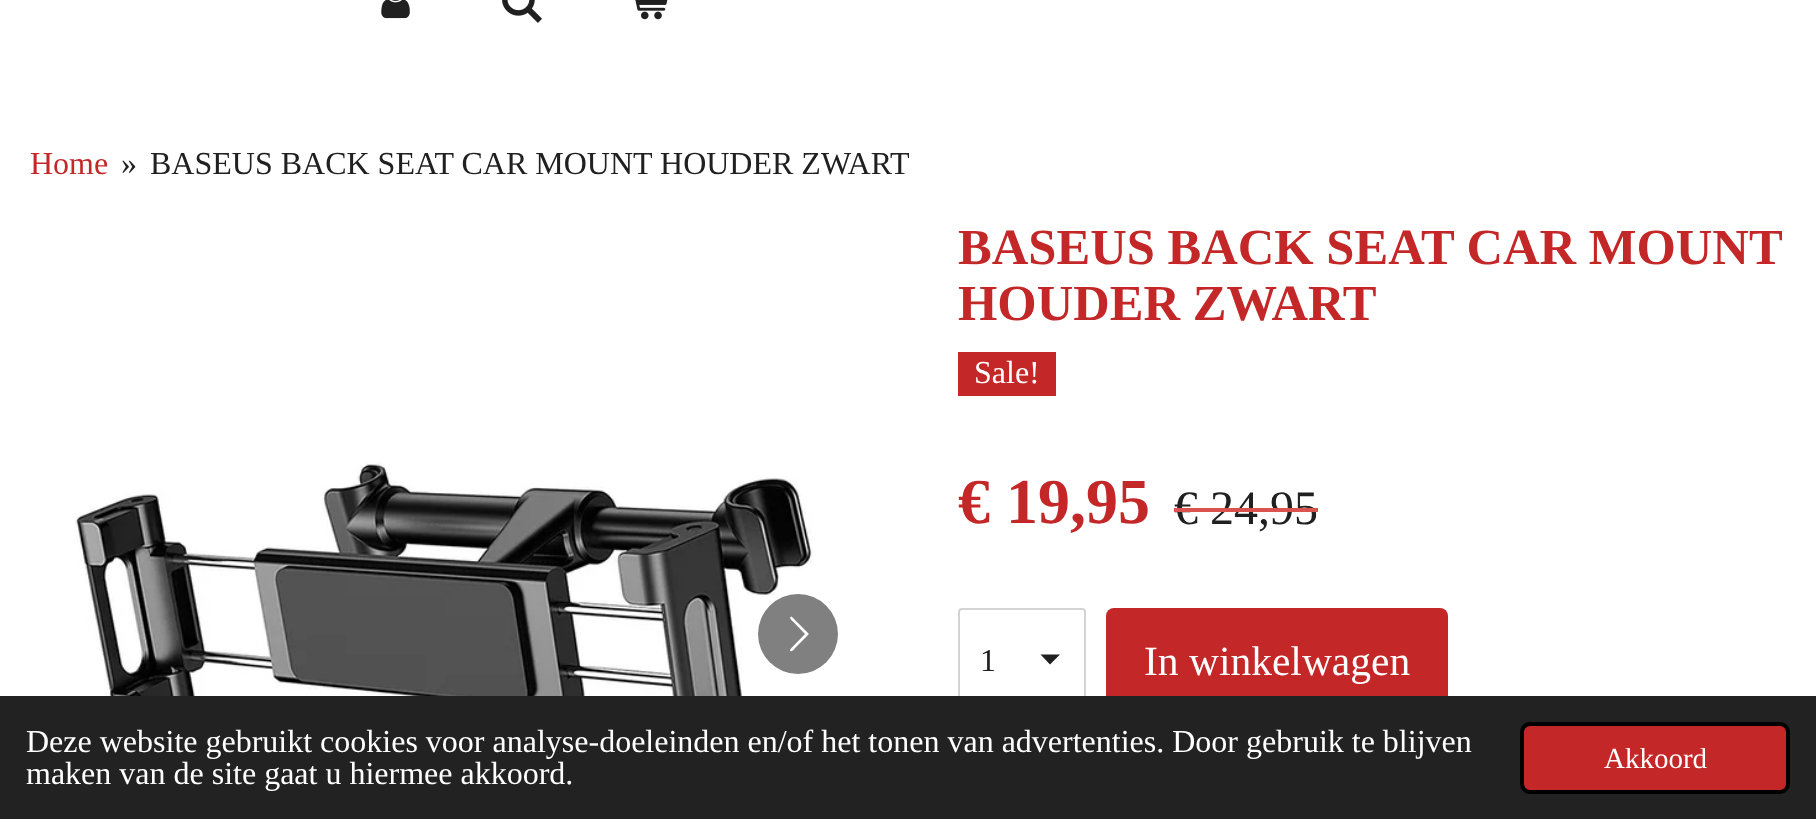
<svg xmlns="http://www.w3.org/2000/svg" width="1816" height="819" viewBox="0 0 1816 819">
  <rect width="100%" height="100%" fill="rgb(255,255,255)"/>
  <image x="381" y="0" width="29" height="19" href="pic1.png"/>
  <image x="502" y="0" width="40" height="23" href="pic2.png"/>
  <image x="635" y="0" width="33" height="20" href="pic3.png"/>
  <text x="30" y="174" font-family="Liberation Serif" font-size="32" fill="rgb(196,39,39)">Home</text>
  <g font-family="Liberation Serif" font-size="32" fill="rgb(32,32,32)">
    <text x="121" y="174">»</text>
    <text x="150" y="174">BASEUS BACK SEAT CAR MOUNT HOUDER ZWART</text>
  </g>
  <g font-family="Liberation Serif" font-size="50.6" font-weight="bold" fill="rgb(196,39,39)">
    <text>
      <tspan x="958" y="264">BASEUS BACK SEAT CAR MOUNT</tspan>
      <tspan x="958" y="320">HOUDER ZWART</tspan>
    </text>
  </g>
  <rect x="958" y="352" width="98" height="44" fill="rgb(196,39,39)"/>
  <text x="974" y="383" font-family="Liberation Serif" font-size="32" fill="rgb(255,255,255)">Sale!</text>
  <image x="75" y="462" width="737" height="234" href="pic4.png"/>
  <circle cx="798" cy="634" r="40" fill="rgb(128,128,128)"/>
  <path d="M790.5 649L805 634L793 621.5C792.5 621 788 617.5 791.5 616.5L792 617L808.5 633.5V634.5L795 648C795 648.5 791 653.5 790 650Z" fill="rgb(255,255,255)"/>
  <text x="958" y="523" font-family="Liberation Serif" font-size="64" font-weight="bold" fill="rgb(196,39,39)">€ 19,95</text>
  <text x="1174" y="524" font-family="Liberation Serif" font-size="48" fill="rgb(32,32,32)">€ 24,95</text>
  <rect x="1174" y="508" width="144" height="4" fill="rgb(217,83,79)"/>
  <path d="M1050 664.5L1040.5 654.5H1060Z" fill="rgb(32,32,32)"/>
  <rect x="959" y="609" width="126" height="102" rx="3" fill="none" stroke="rgb(211,211,211)" stroke-width="2"/>
  <text x="980" y="671" font-family="Liberation Serif" font-size="32" fill="rgb(32,32,32)">1</text>
  <rect x="1106" y="608" width="342" height="104" rx="8" fill="rgb(196,39,39)"/>
  <text x="1144" y="675" font-family="Liberation Serif" font-size="41.5" fill="rgb(255,255,255)">In winkelwagen</text>
  <rect x="0" y="696" width="1816" height="123" fill="rgb(34,34,34)"/>
  <g font-family="Liberation Serif" font-size="32" fill="rgb(255,255,255)">
    <text>
      <tspan x="26" y="752">Deze website gebruikt cookies voor analyse-doeleinden en/of het tonen van advertenties. Door gebruik te blijven</tspan>
      <tspan x="26" y="784">maken van de site gaat u hiermee akkoord.</tspan>
    </text>
  </g>
  <rect x="1522" y="724" width="266" height="68" rx="8" fill="rgb(196,39,39)" stroke="rgb(0,0,0)" stroke-width="4"/>
  <text x="1604" y="768" font-family="Liberation Serif" font-size="29" fill="rgb(255,255,255)">Akkoord</text>
</svg>
